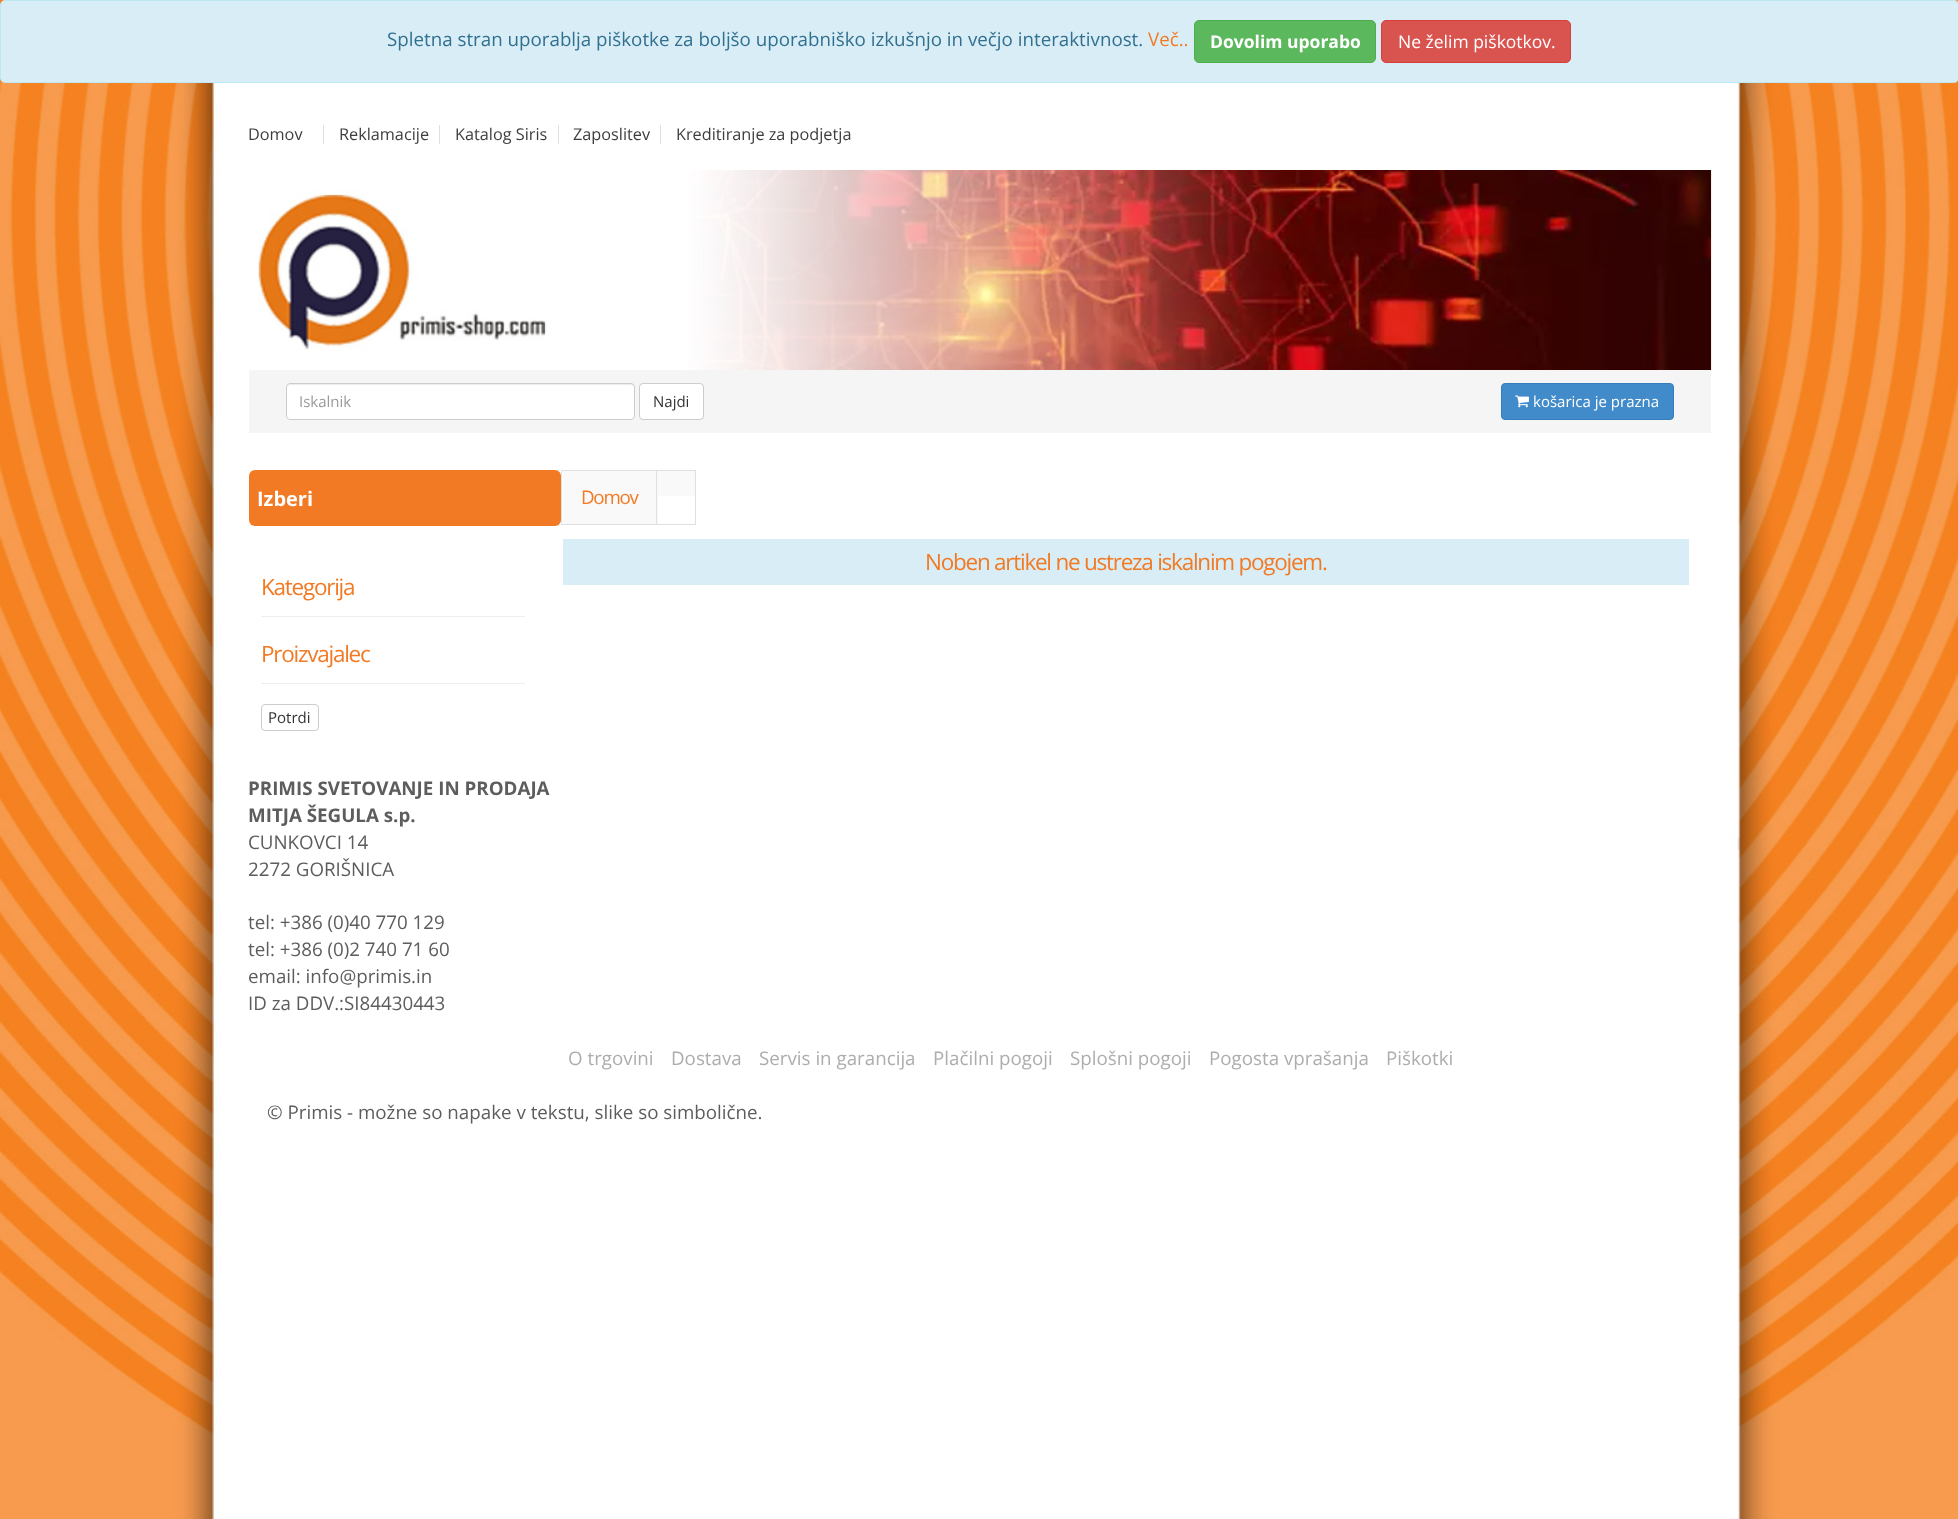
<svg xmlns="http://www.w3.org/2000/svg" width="1958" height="1519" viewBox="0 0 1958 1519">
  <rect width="100%" height="100%" fill="rgb(255,255,255)"/>
  <image x="0" y="0" width="1958" height="1519" href="pic1.png"/>
  <rect x="0.5" y="0.5" width="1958" height="82" rx="4.5" fill="rgb(217,237,247)" stroke="rgb(188,232,241)"/>
  <text x="387" y="46" font-family="Open Sans" font-size="18.75" fill="rgb(49,112,143)">Spletna stran uporablja piškotke za boljšo uporabniško izkušnjo in večjo interaktivnost.</text>
  <text x="1148" y="46" font-family="Open Sans" font-size="18.75" fill="rgb(242,122,36)">Več..</text>
  <rect x="1194.5" y="20.5" width="181" height="42" rx="4.5" fill="rgb(92,184,92)" stroke="rgb(76,174,76)"/>
  <text x="1210" y="48" font-family="Open Sans" font-size="17.5" font-weight="bold" fill="rgb(255,255,255)">Dovolim uporabo</text>
  <rect x="1381.5" y="20.5" width="189" height="42" rx="4.5" fill="rgb(217,83,79)" stroke="rgb(212,63,58)"/>
  <text x="1398" y="48" font-family="Open Sans" font-size="17.5" fill="rgb(255,255,255)">Ne želim piškotkov.</text>
  <rect x="323" y="125" width="1" height="19" fill="rgb(224,224,224)"/>
  <text x="248" y="140" font-family="Open Sans" font-size="16.25" fill="rgb(61,61,61)">Domov</text>
  <rect x="439" y="125" width="1" height="19" fill="rgb(224,224,224)"/>
  <text x="339" y="140" font-family="Open Sans" font-size="16.25" fill="rgb(61,61,61)">Reklamacije</text>
  <rect x="558" y="125" width="1" height="19" fill="rgb(224,224,224)"/>
  <text x="455" y="140" font-family="Open Sans" font-size="16.25" fill="rgb(61,61,61)">Katalog Siris</text>
  <rect x="660" y="125" width="1" height="19" fill="rgb(224,224,224)"/>
  <g font-family="Open Sans" font-size="16.25" fill="rgb(61,61,61)">
    <text x="573" y="140">Zaposlitev</text>
    <text x="676" y="140">Kreditiranje za podjetja</text>
  </g>
  <image x="258" y="170" width="1454" height="200" href="pic2.png"/>
  <rect x="249" y="370" width="1462" height="63" fill="rgb(245,245,245)"/>
  <rect x="286" y="383" width="349" height="37" rx="4" fill="rgb(255,255,255)"/>
  <path d="M290 385H631C633 385 634 386 634 388C634 386 634 384 632 384H290L288 385V388C288 386 289 385 290 385Z" fill="rgb(236,236,236)"/>
  <rect x="286.5" y="383.5" width="348" height="36" rx="3.5" fill="none" stroke="rgb(204,204,204)"/>
  <text x="299" y="407" font-family="Open Sans" font-size="15" fill="rgb(153,153,153)">Iskalnik</text>
  <rect x="639.5" y="383.5" width="64" height="36" rx="3.5" fill="rgb(255,255,255)" stroke="rgb(204,204,204)"/>
  <text x="653" y="407" font-family="Open Sans" font-size="15" fill="rgb(51,51,51)">Najdi</text>
  <rect x="1501.5" y="383.5" width="172" height="36" rx="3.5" fill="rgb(66,139,202)" stroke="rgb(53,126,189)"/>
  <image x="1515" y="395" width="14" height="13" href="pic3.png"/>
  <text x="1533" y="407" font-family="Open Sans" font-size="15" fill="rgb(255,255,255)">košarica je prazna</text>
  <rect x="249" y="470" width="312" height="56" rx="6" fill="rgb(242,122,36)"/>
  <text x="257" y="506" font-family="Open Sans" font-size="20" font-weight="bold" fill="rgb(255,255,255)">Izberi</text>
  <rect x="561.5" y="470.5" width="134" height="54" fill="none" stroke="rgb(224,224,224)"/>
  <rect x="658" y="471" width="37" height="25" fill="rgb(249,249,249)"/>
  <rect x="563" y="471" width="95" height="53" fill="rgb(249,249,249)"/>
  <rect x="656" y="471" width="1" height="53" fill="rgb(224,224,224)"/>
  <text x="581" y="504" font-family="Open Sans" font-size="18.75" letter-spacing="-1.25" fill="rgb(242,122,36)">Domov</text>
  <rect x="563" y="539" width="1126" height="46" fill="rgb(217,237,247)"/>
  <g font-family="Open Sans" font-size="22.5" letter-spacing="-1.25" fill="rgb(242,122,36)">
    <text x="925" y="570">Noben artikel ne ustreza iskalnim pogojem.</text>
    <text x="261" y="595">Kategorija</text>
  </g>
  <rect x="261" y="616" width="264" height="1" fill="rgb(238,238,238)"/>
  <text x="261" y="662" font-family="Open Sans" font-size="22.5" letter-spacing="-1.25" fill="rgb(242,122,36)">Proizvajalec</text>
  <rect x="261" y="683" width="264" height="1" fill="rgb(238,238,238)"/>
  <rect x="261.5" y="704.5" width="57" height="26" rx="3.5" fill="none" stroke="rgb(204,204,204)"/>
  <text x="268" y="723" font-family="Open Sans" font-size="15" fill="rgb(51,51,51)">Potrdi</text>
  <g font-family="Open Sans" font-size="18.75" font-weight="bold" fill="rgb(93,93,93)">
    <text>
      <tspan x="248" y="795">PRIMIS SVETOVANJE IN PRODAJA</tspan>
      <tspan x="248" y="822">MITJA ŠEGULA s.p.</tspan>
    </text>
  </g>
  <g font-family="Open Sans" font-size="18.75" fill="rgb(93,93,93)">
    <text>
      <tspan x="248" y="849">CUNKOVCI 14</tspan>
      <tspan x="248" y="876">2272 GORIŠNICA</tspan>
    </text>
    <text>
      <tspan x="248" y="929">tel: +386 (0)40 770 129</tspan>
      <tspan x="248" y="956">tel: +386 (0)2 740 71 60</tspan>
      <tspan x="248" y="983">email: info@primis.in</tspan>
      <tspan x="248" y="1010">ID za DDV.:SI84430443</tspan>
    </text>
  </g>
  <g font-family="Open Sans" font-size="18.75" fill="rgb(173,173,173)">
    <text x="568" y="1065">O trgovini</text>
    <text x="671" y="1065">Dostava</text>
    <text x="759" y="1065">Servis in garancija</text>
    <text x="933" y="1065">Plačilni pogoji</text>
    <text x="1070" y="1065">Splošni pogoji</text>
    <text x="1209" y="1065">Pogosta vprašanja</text>
    <text x="1386" y="1065">Piškotki</text>
  </g>
  <text x="267" y="1119" font-family="Open Sans" font-size="18.75" fill="rgb(93,93,93)">© Primis - možne so napake v tekstu, slike so simbolične.</text>
</svg>
